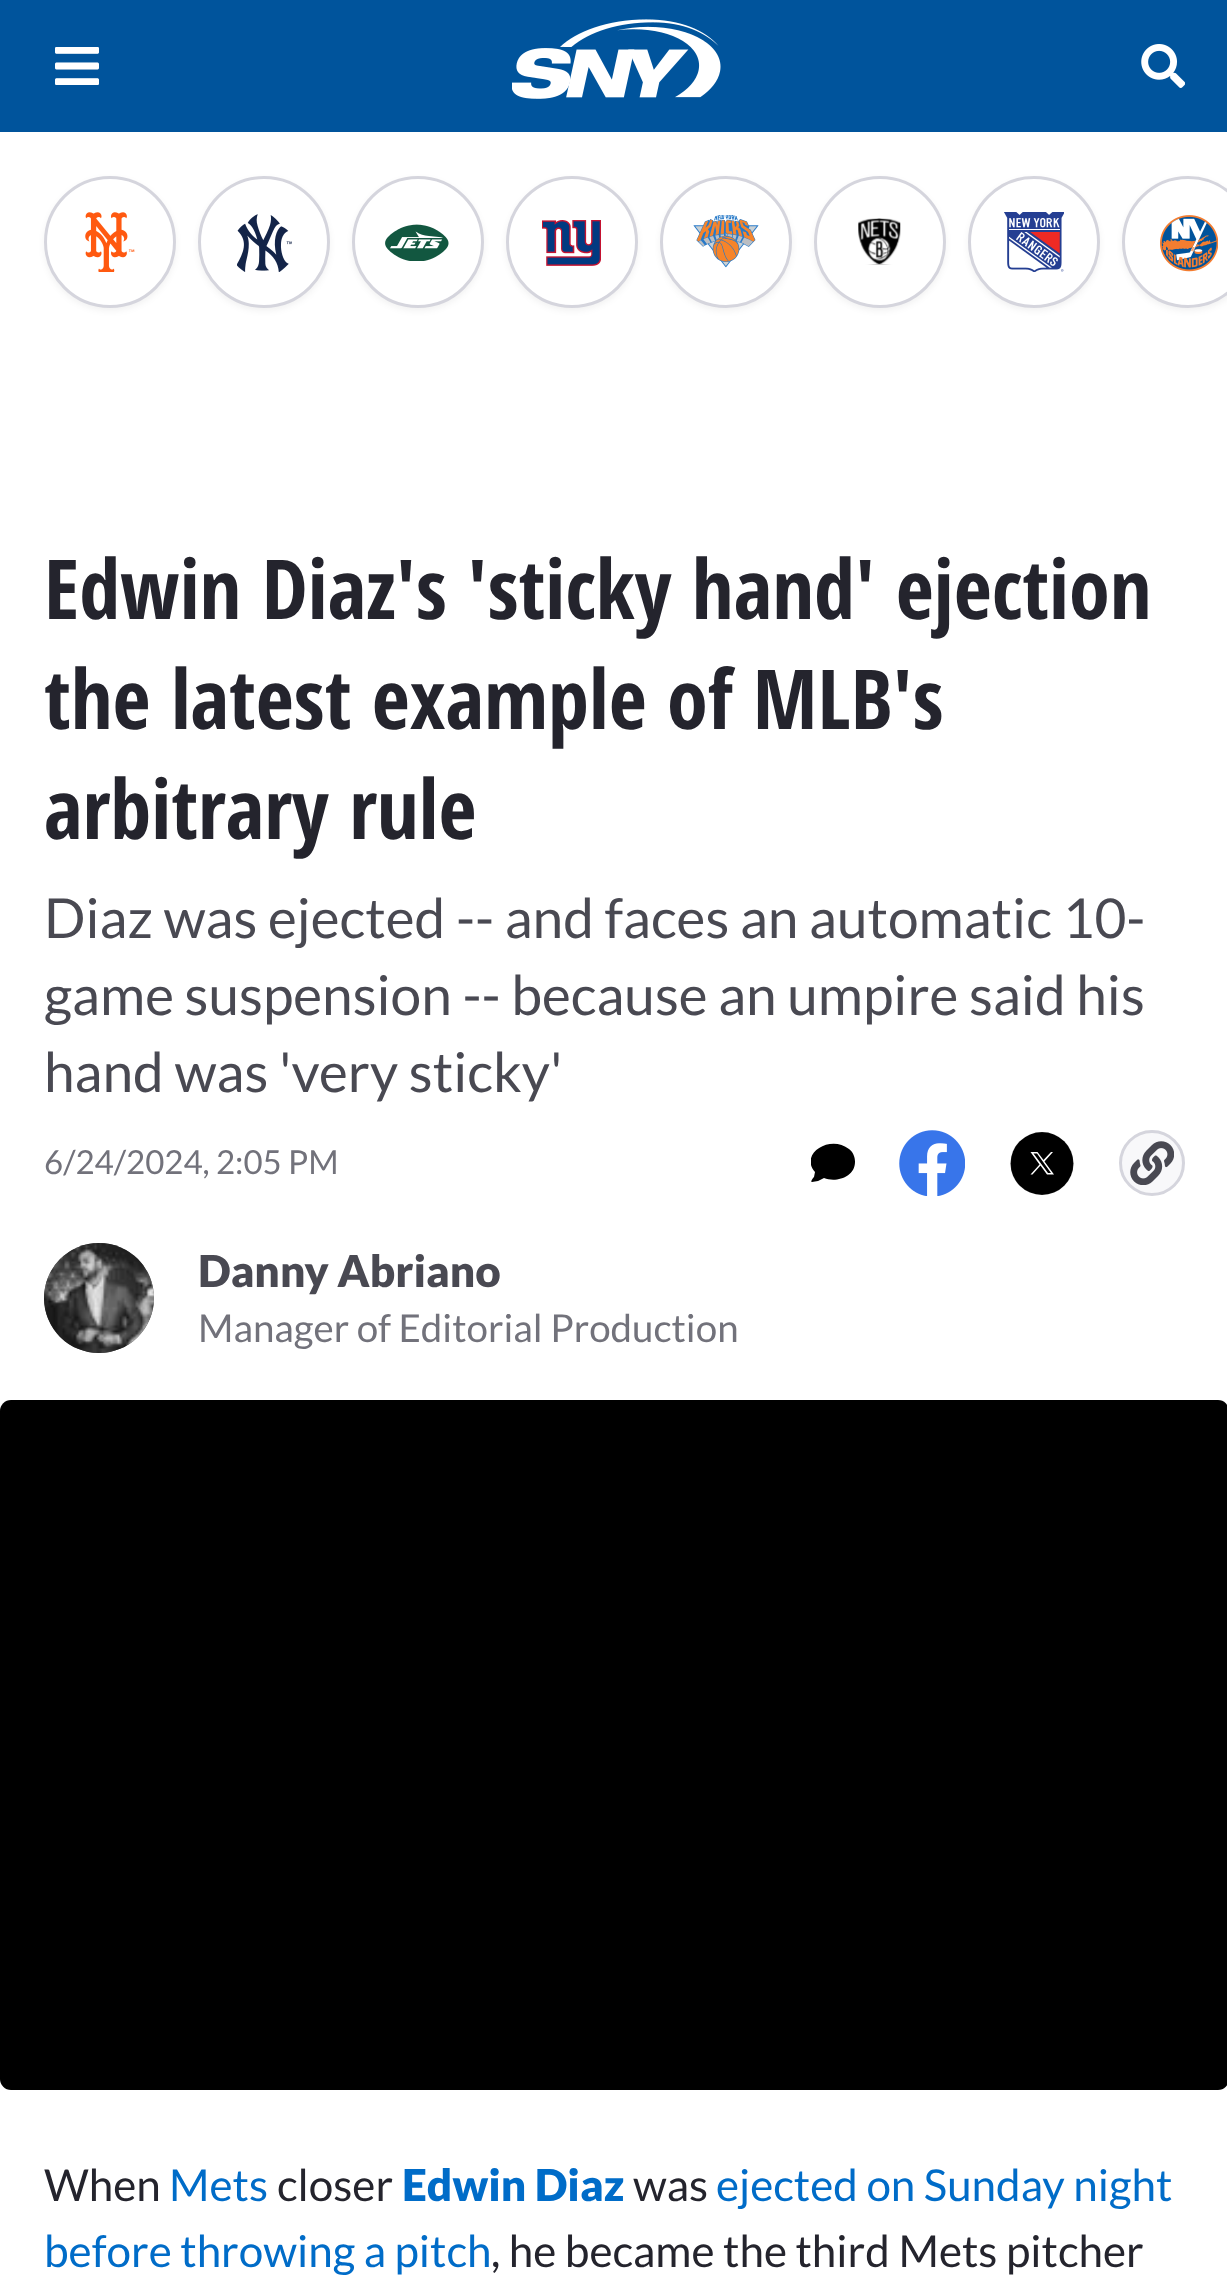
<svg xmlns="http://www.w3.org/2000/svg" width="1227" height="2278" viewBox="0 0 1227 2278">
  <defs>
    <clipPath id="clip1"><rect x="811" y="1141" width="44" height="44"/></clipPath>
  </defs>
  <rect width="100%" height="100%" fill="rgb(255,255,255)"/>
  <rect x="0" y="0" width="1227" height="132" fill="rgb(0,84,156)"/>
  <image x="55" y="47" width="44" height="38" href="pic1.png"/>
  <image x="512" y="19" width="209" height="80" href="pic2.png"/>
  <image x="1141" y="44" width="44" height="44" href="pic3.png"/>
  <rect x="44" y="179" width="132" height="132" rx="66" fill="rgba(0,0,0,0.05)" filter="blur(3px)"/>
  <circle cx="110" cy="242" r="64.5" fill="rgb(255,255,255)" stroke="rgb(213,213,221)" stroke-width="3"/>
  <image x="85" y="212" width="50" height="60" href="pic4.png"/>
  <rect x="198" y="179" width="132" height="132" rx="66" fill="rgba(0,0,0,0.05)" filter="blur(3px)"/>
  <circle cx="264" cy="242" r="64.5" fill="rgb(255,255,255)" stroke="rgb(213,213,221)" stroke-width="3"/>
  <image x="237" y="214" width="55" height="58" href="pic5.png"/>
  <rect x="352" y="179" width="132" height="132" rx="66" fill="rgba(0,0,0,0.05)" filter="blur(3px)"/>
  <circle cx="418" cy="242" r="64.5" fill="rgb(255,255,255)" stroke="rgb(213,213,221)" stroke-width="3"/>
  <image x="385" y="224" width="64" height="37" href="pic6.png"/>
  <rect x="506" y="179" width="132" height="132" rx="66" fill="rgba(0,0,0,0.05)" filter="blur(3px)"/>
  <circle cx="572" cy="242" r="64.5" fill="rgb(255,255,255)" stroke="rgb(213,213,221)" stroke-width="3"/>
  <image x="542" y="220" width="59" height="46" href="pic7.png"/>
  <rect x="660" y="179" width="132" height="132" rx="66" fill="rgba(0,0,0,0.05)" filter="blur(3px)"/>
  <circle cx="726" cy="242" r="64.5" fill="rgb(255,255,255)" stroke="rgb(213,213,221)" stroke-width="3"/>
  <image x="693" y="215" width="66" height="53" href="pic8.png"/>
  <rect x="814" y="179" width="132" height="132" rx="66" fill="rgba(0,0,0,0.05)" filter="blur(3px)"/>
  <circle cx="880" cy="242" r="64.5" fill="rgb(255,255,255)" stroke="rgb(213,213,221)" stroke-width="3"/>
  <image x="858" y="218" width="43" height="47" href="pic9.png"/>
  <rect x="968" y="179" width="132" height="132" rx="66" fill="rgba(0,0,0,0.05)" filter="blur(3px)"/>
  <circle cx="1034" cy="242" r="64.5" fill="rgb(255,255,255)" stroke="rgb(213,213,221)" stroke-width="3"/>
  <image x="1004" y="212" width="60" height="60" href="pic10.png"/>
  <rect x="1122" y="179" width="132" height="132" rx="66" fill="rgba(0,0,0,0.05)" filter="blur(3px)"/>
  <circle cx="1188" cy="242" r="64.5" fill="rgb(255,255,255)" stroke="rgb(213,213,221)" stroke-width="3"/>
  <image x="1160" y="215" width="58" height="57" href="pic11.png"/>
  <g font-family="Open Sans Condensed" font-size="82.5" font-weight="bold" fill="rgb(36,36,45)">
    <text>
      <tspan x="44" y="619">Edwin Diaz's 'sticky hand' ejection</tspan>
      <tspan x="44" y="729">the latest example of MLB's</tspan>
      <tspan x="44" y="839">arbitrary rule</tspan>
    </text>
  </g>
  <g font-family="Lato" font-size="55" fill="rgb(73,73,82)">
    <text>
      <tspan x="44" y="938">Diaz was ejected -- and faces an automatic 10-</tspan>
      <tspan x="44" y="1015">game suspension -- because an umpire said his</tspan>
      <tspan x="44" y="1092">hand was 'very sticky'</tspan>
    </text>
  </g>
  <text x="44" y="1174" font-family="Lato" font-size="33" fill="rgb(114,114,123)">6/24/2024, 2:05 PM</text>
  <g clip-path="url(#clip1)">
    <path d="M855 1162C855 1177 836 1183 824 1178L818 1181L812 1182C810 1182 813 1178 814 1177L815 1172C799 1154 830 1134 849 1149C853 1152 855 1157 855 1162Z" fill="rgb(0,0,0)"/>
  </g>
  <image x="899" y="1130" width="66" height="66" href="pic12.png"/>
  <circle cx="1042" cy="1163.5" r="31.5" fill="rgb(0,0,0)" stroke="rgb(255,255,255)" stroke-width="0.1"/>
  <path d="M1030.5 1152L1039.5 1164.5L1030.5 1174.5H1032.5L1040.5 1165.5L1047 1174.5H1054L1044.5 1161.5L1053 1152H1051L1043.5 1160L1037.5 1152ZM1033.5 1153.5H1037L1051 1173H1048Z" fill="rgb(255,255,255)"/>
  <circle cx="1152" cy="1163" r="31.5" fill="rgb(248,248,250)" stroke="rgb(213,213,221)" stroke-width="3"/>
  <image x="1130" y="1141" width="44" height="44" href="pic13.png"/>
  <circle cx="99" cy="1298" r="55" fill="rgb(77,77,77)"/>
  <image x="44" y="1243" width="110" height="110" href="pic14.png"/>
  <text x="198" y="1287" font-family="Lato" font-size="44" font-weight="900" fill="rgb(73,73,82)">Danny Abriano</text>
  <text x="198" y="1342" font-family="Lato" font-size="38.5" fill="rgb(114,114,123)">Manager of Editorial Production</text>
  <rect x="0" y="1400" width="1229" height="690" rx="11" fill="rgb(0,0,0)"/>
  <text x="44" y="2201" font-family="Lato" font-size="44" fill="rgb(36,36,45)">When</text>
  <text x="169" y="2201" font-family="Lato" font-size="44" fill="rgb(0,108,200)">Mets</text>
  <text x="277" y="2201" font-family="Lato" font-size="44" fill="rgb(36,36,45)">closer</text>
  <text x="402" y="2201" font-family="Lato" font-size="44" font-weight="900" fill="rgb(0,108,200)">Edwin Diaz</text>
  <text x="633" y="2201" font-family="Lato" font-size="44" fill="rgb(36,36,45)">was</text>
  <g font-family="Lato" font-size="44" fill="rgb(0,108,200)">
    <text x="716" y="2201">ejected on Sunday night</text>
    <text x="44" y="2267">before throwing a pitch</text>
  </g>
  <text x="491" y="2267" font-family="Lato" font-size="44" fill="rgb(36,36,45)">, he became the third Mets pitcher</text>
</svg>
